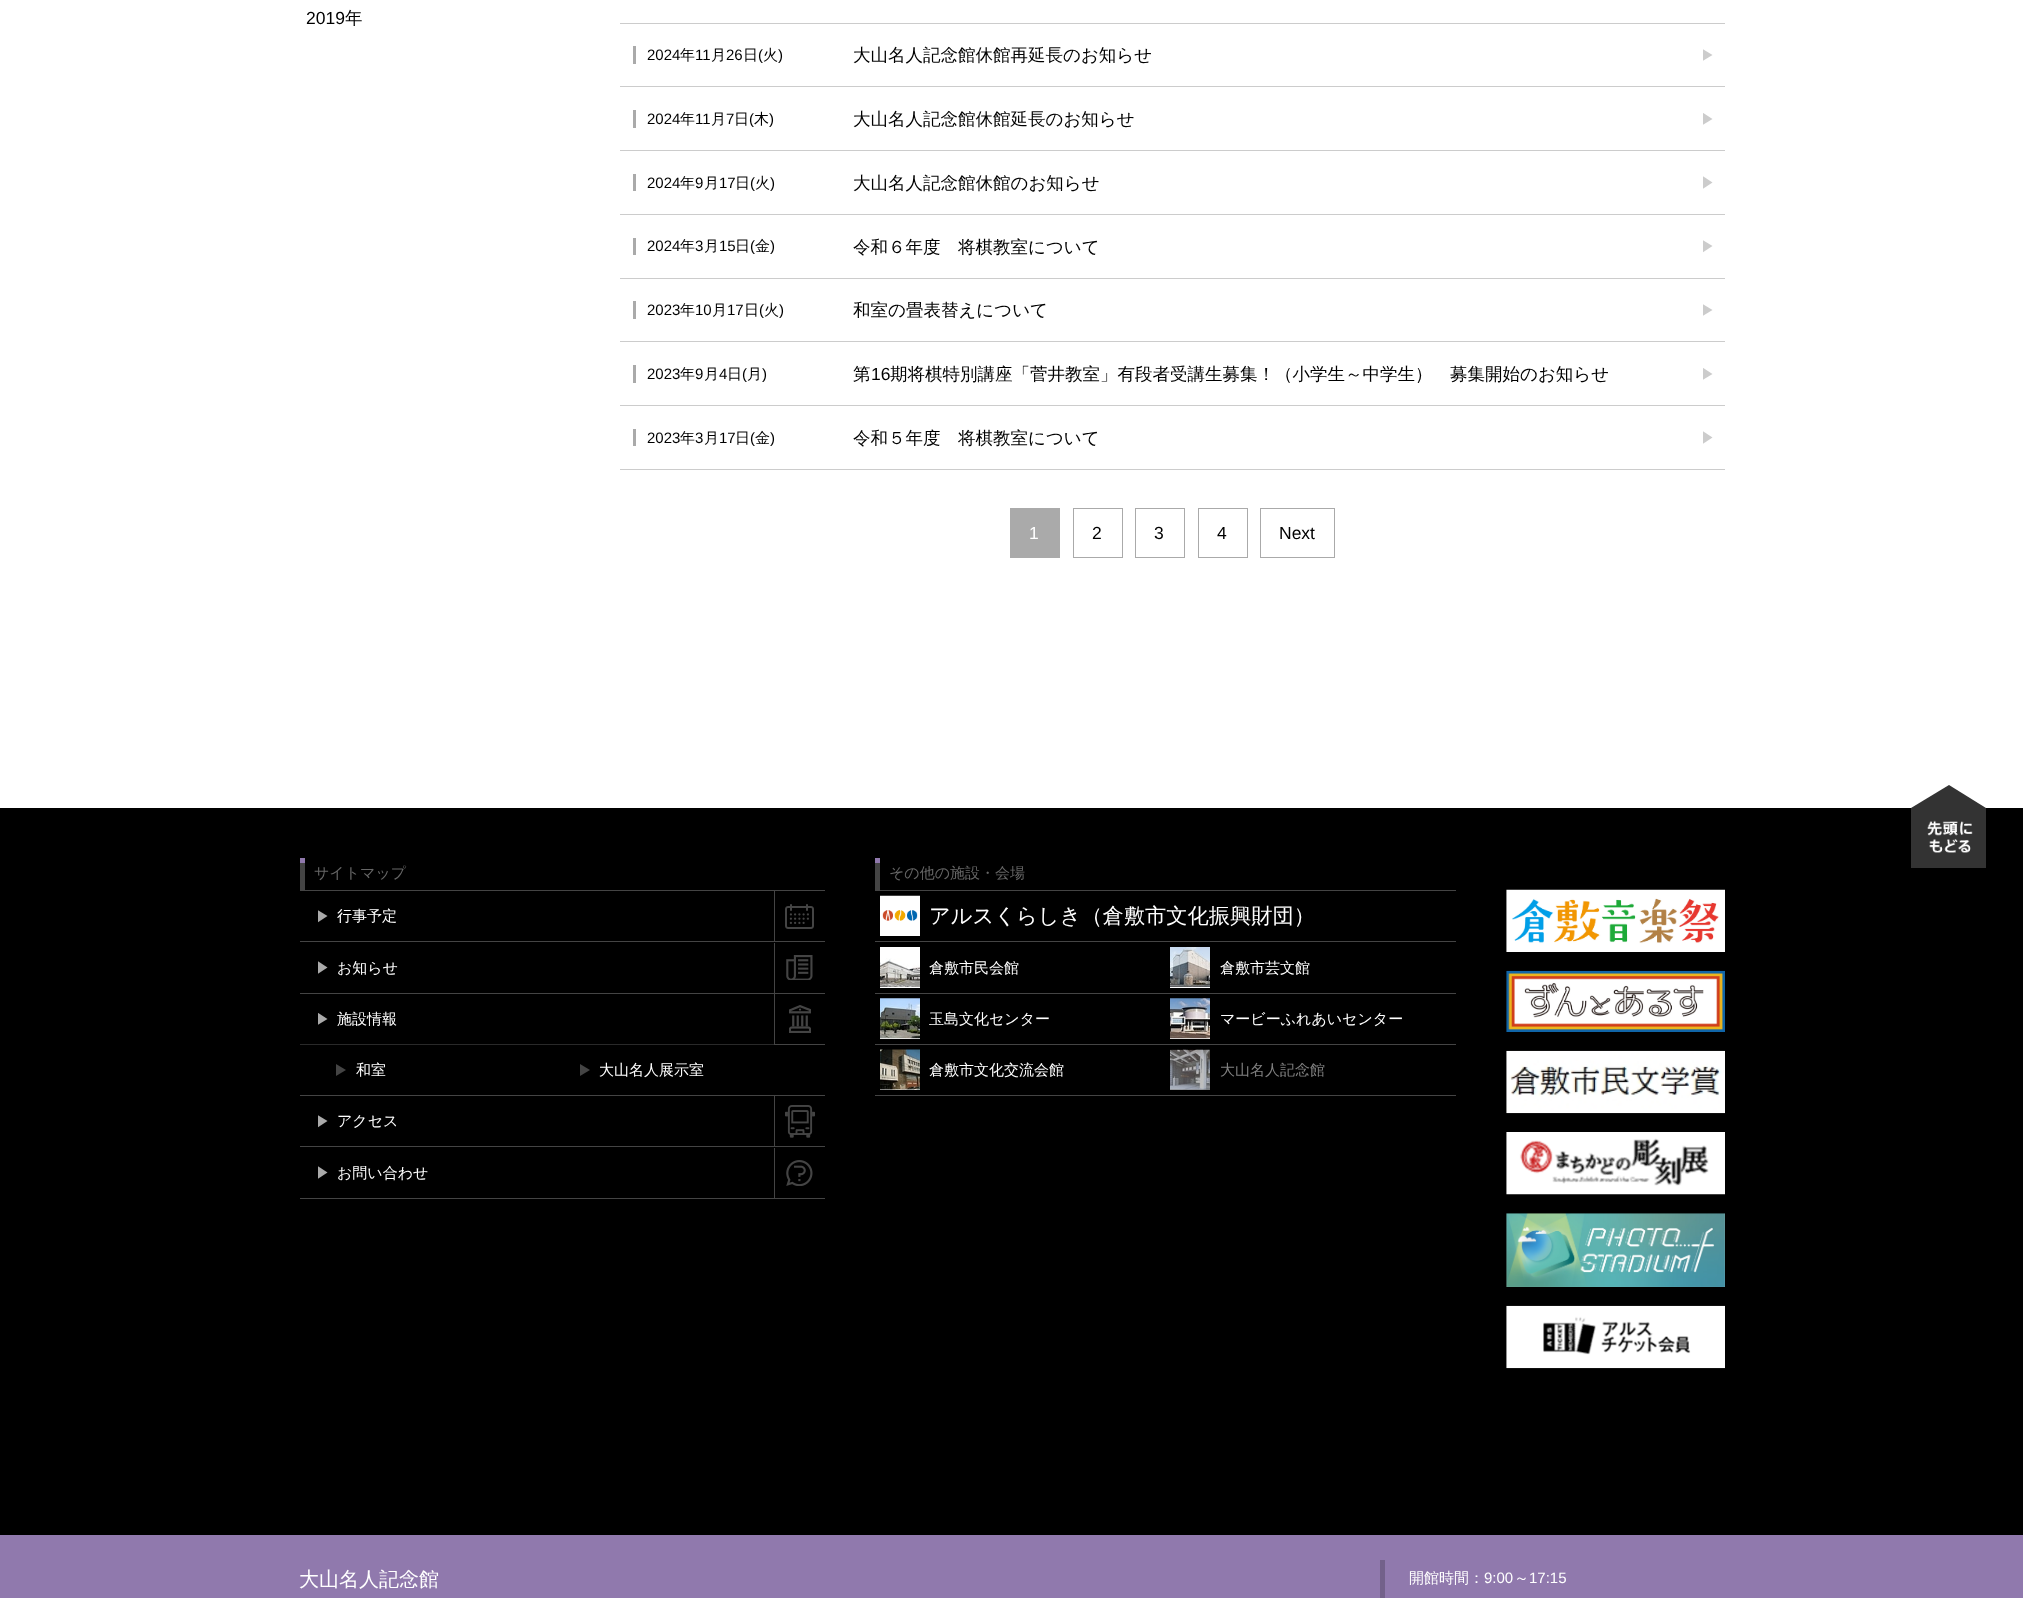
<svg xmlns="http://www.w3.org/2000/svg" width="2023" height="1598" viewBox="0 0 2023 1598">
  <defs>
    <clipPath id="clip1"><rect x="1703" y="49" width="10" height="12"/></clipPath>
    <clipPath id="clip2"><rect x="1703" y="113" width="10" height="12"/></clipPath>
    <clipPath id="clip3"><rect x="1703" y="176" width="10" height="13"/></clipPath>
    <clipPath id="clip4"><rect x="1703" y="240" width="10" height="13"/></clipPath>
    <clipPath id="clip5"><rect x="1703" y="304" width="10" height="12"/></clipPath>
    <clipPath id="clip6"><rect x="1703" y="368" width="10" height="12"/></clipPath>
    <clipPath id="clip7"><rect x="1703" y="431" width="10" height="13"/></clipPath>
    <clipPath id="clip8"><rect x="1911" y="785" width="75" height="83"/></clipPath>
    <clipPath id="clip9"><rect x="318" y="910" width="10" height="13"/></clipPath>
    <clipPath id="clip10"><rect x="318" y="961" width="10" height="13"/></clipPath>
    <clipPath id="clip11"><rect x="318" y="1013" width="10" height="12"/></clipPath>
    <clipPath id="clip12"><rect x="318" y="1115" width="10" height="13"/></clipPath>
    <clipPath id="clip13"><rect x="318" y="1166" width="10" height="13"/></clipPath>
  </defs>
  <rect width="100%" height="100%" fill="rgb(255,255,255)"/>
  <text x="306" y="24" font-family="Liberation Sans" font-size="17.5" fill="rgb(0,0,0)">2019</text>
  <text x="345" y="24" font-family="WenQuanYi Zen Hei" font-size="17.5" font-weight="500" fill="rgb(0,0,0)">年</text>
  <rect x="620" y="23" width="1105" height="1" fill="rgb(204,204,204)"/>
  <rect x="620" y="86" width="1105" height="1" fill="rgb(204,204,204)"/>
  <text x="647" y="60" font-family="Liberation Sans" font-size="15" fill="rgb(0,0,0)">2024</text>
  <rect x="633" y="46" width="3" height="18" fill="rgb(170,170,170)"/>
  <text x="680" y="60" font-family="WenQuanYi Zen Hei" font-size="15" font-weight="500" fill="rgb(0,0,0)">年</text>
  <text x="695" y="60" font-family="Liberation Sans" font-size="15" fill="rgb(0,0,0)">11</text>
  <text x="711" y="60" font-family="WenQuanYi Zen Hei" font-size="15" font-weight="500" fill="rgb(0,0,0)">月</text>
  <text x="726" y="60" font-family="Liberation Sans" font-size="15" fill="rgb(0,0,0)">26</text>
  <text x="743" y="60" font-family="WenQuanYi Zen Hei" font-size="15" font-weight="500" fill="rgb(0,0,0)">日</text>
  <text x="758" y="60" font-family="Liberation Sans" font-size="15" fill="rgb(0,0,0)">(</text>
  <text x="763" y="60" font-family="WenQuanYi Zen Hei" font-size="15" font-weight="500" fill="rgb(0,0,0)">火</text>
  <text x="778" y="60" font-family="Liberation Sans" font-size="15" fill="rgb(0,0,0)">)</text>
  <text x="853" y="61" font-family="WenQuanYi Zen Hei" font-size="17.5" font-weight="500" fill="rgb(0,0,0)">大山名人記念館休館再延長のお知らせ</text>
  <g clip-path="url(#clip1)">
    <path d="M1702.5 49L1712.5 55L1702.5 61Z" fill="rgb(204,204,204)" fill-rule="evenodd"/>
  </g>
  <rect x="620" y="150" width="1105" height="1" fill="rgb(204,204,204)"/>
  <text x="647" y="124" font-family="Liberation Sans" font-size="15" fill="rgb(0,0,0)">2024</text>
  <rect x="633" y="110" width="3" height="18" fill="rgb(170,170,170)"/>
  <text x="680" y="124" font-family="WenQuanYi Zen Hei" font-size="15" font-weight="500" fill="rgb(0,0,0)">年</text>
  <text x="695" y="124" font-family="Liberation Sans" font-size="15" fill="rgb(0,0,0)">11</text>
  <text x="711" y="124" font-family="WenQuanYi Zen Hei" font-size="15" font-weight="500" fill="rgb(0,0,0)">月</text>
  <text x="726" y="124" font-family="Liberation Sans" font-size="15" fill="rgb(0,0,0)">7</text>
  <text x="734" y="124" font-family="WenQuanYi Zen Hei" font-size="15" font-weight="500" fill="rgb(0,0,0)">日</text>
  <text x="749" y="124" font-family="Liberation Sans" font-size="15" fill="rgb(0,0,0)">(</text>
  <text x="754" y="124" font-family="WenQuanYi Zen Hei" font-size="15" font-weight="500" fill="rgb(0,0,0)">木</text>
  <text x="769" y="124" font-family="Liberation Sans" font-size="15" fill="rgb(0,0,0)">)</text>
  <text x="853" y="125" font-family="WenQuanYi Zen Hei" font-size="17.5" font-weight="500" fill="rgb(0,0,0)">大山名人記念館休館延長のお知らせ</text>
  <g clip-path="url(#clip2)">
    <path d="M1702.5 112.5L1712.5 119L1702.5 125Z" fill="rgb(204,204,204)" fill-rule="evenodd"/>
  </g>
  <rect x="620" y="214" width="1105" height="1" fill="rgb(204,204,204)"/>
  <text x="647" y="188" font-family="Liberation Sans" font-size="15" fill="rgb(0,0,0)">2024</text>
  <rect x="633" y="174" width="3" height="17" fill="rgb(170,170,170)"/>
  <text x="680" y="188" font-family="WenQuanYi Zen Hei" font-size="15" font-weight="500" fill="rgb(0,0,0)">年</text>
  <text x="695" y="188" font-family="Liberation Sans" font-size="15" fill="rgb(0,0,0)">9</text>
  <text x="704" y="188" font-family="WenQuanYi Zen Hei" font-size="15" font-weight="500" fill="rgb(0,0,0)">月</text>
  <text x="719" y="188" font-family="Liberation Sans" font-size="15" fill="rgb(0,0,0)">17</text>
  <text x="735" y="188" font-family="WenQuanYi Zen Hei" font-size="15" font-weight="500" fill="rgb(0,0,0)">日</text>
  <text x="750" y="188" font-family="Liberation Sans" font-size="15" fill="rgb(0,0,0)">(</text>
  <text x="755" y="188" font-family="WenQuanYi Zen Hei" font-size="15" font-weight="500" fill="rgb(0,0,0)">火</text>
  <text x="770" y="188" font-family="Liberation Sans" font-size="15" fill="rgb(0,0,0)">)</text>
  <text x="853" y="189" font-family="WenQuanYi Zen Hei" font-size="17.5" font-weight="500" fill="rgb(0,0,0)">大山名人記念館休館のお知らせ</text>
  <g clip-path="url(#clip3)">
    <path d="M1702.5 176L1712.5 182.5L1702.5 189Z" fill="rgb(204,204,204)" fill-rule="evenodd"/>
  </g>
  <rect x="620" y="278" width="1105" height="1" fill="rgb(204,204,204)"/>
  <text x="647" y="251" font-family="Liberation Sans" font-size="15" fill="rgb(0,0,0)">2024</text>
  <rect x="633" y="238" width="3" height="17" fill="rgb(170,170,170)"/>
  <text x="680" y="251" font-family="WenQuanYi Zen Hei" font-size="15" font-weight="500" fill="rgb(0,0,0)">年</text>
  <text x="695" y="251" font-family="Liberation Sans" font-size="15" fill="rgb(0,0,0)">3</text>
  <text x="704" y="251" font-family="WenQuanYi Zen Hei" font-size="15" font-weight="500" fill="rgb(0,0,0)">月</text>
  <text x="719" y="251" font-family="Liberation Sans" font-size="15" fill="rgb(0,0,0)">15</text>
  <text x="735" y="251" font-family="WenQuanYi Zen Hei" font-size="15" font-weight="500" fill="rgb(0,0,0)">日</text>
  <text x="750" y="251" font-family="Liberation Sans" font-size="15" fill="rgb(0,0,0)">(</text>
  <text x="755" y="251" font-family="WenQuanYi Zen Hei" font-size="15" font-weight="500" fill="rgb(0,0,0)">金</text>
  <text x="770" y="251" font-family="Liberation Sans" font-size="15" fill="rgb(0,0,0)">)</text>
  <text x="853" y="253" font-family="WenQuanYi Zen Hei" font-size="17.5" font-weight="500" fill="rgb(0,0,0)">令和６年度　将棋教室について</text>
  <g clip-path="url(#clip4)">
    <path d="M1702.5 240L1712.5 246L1702.5 252.5Z" fill="rgb(204,204,204)" fill-rule="evenodd"/>
  </g>
  <rect x="620" y="341" width="1105" height="1" fill="rgb(204,204,204)"/>
  <text x="647" y="315" font-family="Liberation Sans" font-size="15" fill="rgb(0,0,0)">2023</text>
  <rect x="633" y="301" width="3" height="18" fill="rgb(170,170,170)"/>
  <text x="680" y="315" font-family="WenQuanYi Zen Hei" font-size="15" font-weight="500" fill="rgb(0,0,0)">年</text>
  <text x="695" y="315" font-family="Liberation Sans" font-size="15" fill="rgb(0,0,0)">10</text>
  <text x="712" y="315" font-family="WenQuanYi Zen Hei" font-size="15" font-weight="500" fill="rgb(0,0,0)">月</text>
  <text x="727" y="315" font-family="Liberation Sans" font-size="15" fill="rgb(0,0,0)">17</text>
  <text x="744" y="315" font-family="WenQuanYi Zen Hei" font-size="15" font-weight="500" fill="rgb(0,0,0)">日</text>
  <text x="759" y="315" font-family="Liberation Sans" font-size="15" fill="rgb(0,0,0)">(</text>
  <text x="764" y="315" font-family="WenQuanYi Zen Hei" font-size="15" font-weight="500" fill="rgb(0,0,0)">火</text>
  <text x="779" y="315" font-family="Liberation Sans" font-size="15" fill="rgb(0,0,0)">)</text>
  <text x="853" y="316" font-family="WenQuanYi Zen Hei" font-size="17.5" font-weight="500" fill="rgb(0,0,0)">和室の畳表替えについて</text>
  <g clip-path="url(#clip5)">
    <path d="M1702.5 304L1712.5 310L1702.5 316Z" fill="rgb(204,204,204)" fill-rule="evenodd"/>
  </g>
  <rect x="620" y="405" width="1105" height="1" fill="rgb(204,204,204)"/>
  <text x="647" y="379" font-family="Liberation Sans" font-size="15" fill="rgb(0,0,0)">2023</text>
  <rect x="633" y="365" width="3" height="18" fill="rgb(170,170,170)"/>
  <text x="680" y="379" font-family="WenQuanYi Zen Hei" font-size="15" font-weight="500" fill="rgb(0,0,0)">年</text>
  <text x="695" y="379" font-family="Liberation Sans" font-size="15" fill="rgb(0,0,0)">9</text>
  <text x="704" y="379" font-family="WenQuanYi Zen Hei" font-size="15" font-weight="500" fill="rgb(0,0,0)">月</text>
  <text x="719" y="379" font-family="Liberation Sans" font-size="15" fill="rgb(0,0,0)">4</text>
  <text x="727" y="379" font-family="WenQuanYi Zen Hei" font-size="15" font-weight="500" fill="rgb(0,0,0)">日</text>
  <text x="742" y="379" font-family="Liberation Sans" font-size="15" fill="rgb(0,0,0)">(</text>
  <text x="747" y="379" font-family="WenQuanYi Zen Hei" font-size="15" font-weight="500" fill="rgb(0,0,0)">月</text>
  <text x="762" y="379" font-family="Liberation Sans" font-size="15" fill="rgb(0,0,0)">)</text>
  <text x="853" y="380" font-family="WenQuanYi Zen Hei" font-size="17.5" font-weight="500" fill="rgb(0,0,0)">第</text>
  <text x="871" y="380" font-family="Liberation Sans" font-size="17.5" fill="rgb(0,0,0)">16</text>
  <text x="890" y="380" font-family="WenQuanYi Zen Hei" font-size="17.5" font-weight="500" fill="rgb(0,0,0)">期将棋特別講座「菅井教室」有段者受講生募集！（小学生～中学生）　募集開始のお知らせ</text>
  <g clip-path="url(#clip6)">
    <path d="M1702.5 367.5L1712.5 374L1702.5 380Z" fill="rgb(204,204,204)" fill-rule="evenodd"/>
  </g>
  <rect x="620" y="469" width="1105" height="1" fill="rgb(204,204,204)"/>
  <text x="647" y="443" font-family="Liberation Sans" font-size="15" fill="rgb(0,0,0)">2023</text>
  <rect x="633" y="429" width="3" height="17" fill="rgb(170,170,170)"/>
  <text x="680" y="443" font-family="WenQuanYi Zen Hei" font-size="15" font-weight="500" fill="rgb(0,0,0)">年</text>
  <text x="695" y="443" font-family="Liberation Sans" font-size="15" fill="rgb(0,0,0)">3</text>
  <text x="704" y="443" font-family="WenQuanYi Zen Hei" font-size="15" font-weight="500" fill="rgb(0,0,0)">月</text>
  <text x="719" y="443" font-family="Liberation Sans" font-size="15" fill="rgb(0,0,0)">17</text>
  <text x="735" y="443" font-family="WenQuanYi Zen Hei" font-size="15" font-weight="500" fill="rgb(0,0,0)">日</text>
  <text x="750" y="443" font-family="Liberation Sans" font-size="15" fill="rgb(0,0,0)">(</text>
  <text x="755" y="443" font-family="WenQuanYi Zen Hei" font-size="15" font-weight="500" fill="rgb(0,0,0)">金</text>
  <text x="770" y="443" font-family="Liberation Sans" font-size="15" fill="rgb(0,0,0)">)</text>
  <text x="853" y="444" font-family="WenQuanYi Zen Hei" font-size="17.5" font-weight="500" fill="rgb(0,0,0)">令和５年度　将棋教室について</text>
  <g clip-path="url(#clip7)">
    <path d="M1702.5 431L1712.5 437.5L1702.5 444Z" fill="rgb(204,204,204)" fill-rule="evenodd"/>
  </g>
  <rect x="1010" y="508" width="50" height="50" fill="rgb(170,170,170)"/>
  <text x="1029" y="539" font-family="Liberation Sans" font-size="17.5" fill="rgb(255,255,255)">1</text>
  <rect x="1073.5" y="508.5" width="49" height="49" fill="none" stroke="rgb(170,170,170)"/>
  <text x="1092" y="539" font-family="Liberation Sans" font-size="17.5" fill="rgb(0,0,0)">2</text>
  <rect x="1135.5" y="508.5" width="49" height="49" fill="none" stroke="rgb(170,170,170)"/>
  <text x="1154" y="539" font-family="Liberation Sans" font-size="17.5" fill="rgb(0,0,0)">3</text>
  <rect x="1198.5" y="508.5" width="49" height="49" fill="none" stroke="rgb(170,170,170)"/>
  <text x="1217" y="539" font-family="Liberation Sans" font-size="17.5" fill="rgb(0,0,0)">4</text>
  <rect x="1260.5" y="508.5" width="74" height="49" fill="none" stroke="rgb(170,170,170)"/>
  <text x="1279" y="539" font-family="Liberation Sans" font-size="17.5" fill="rgb(0,0,0)">Next</text>
  <rect x="0" y="808" width="2023" height="727" fill="rgb(0,0,0)"/>
  <g clip-path="url(#clip8)">
    <path d="M1874 769V868H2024V769ZM1911 784V808H1986V784Z" fill="rgb(51,51,51)" fill-rule="evenodd"/>
  </g>
  <path d="M1986 808H1911L1949 785Z" fill="rgb(51,51,51)"/>
  <image x="1927" y="820" width="46" height="33" href="pic1.png"/>
  <rect x="300" y="858" width="5" height="32" fill="rgb(68,68,68)"/>
  <rect x="300" y="858" width="5" height="5" fill="rgb(144,121,173)"/>
  <text x="314" y="878" font-family="WenQuanYi Zen Hei" font-size="15" font-weight="500" fill="rgb(102,102,102)">サイトマップ</text>
  <rect x="300" y="890" width="525" height="1" fill="rgb(68,68,68)"/>
  <rect x="300" y="941" width="525" height="1" fill="rgb(68,68,68)"/>
  <g clip-path="url(#clip9)">
    <path d="M317.5 910L327.5 916L317.5 922.5Z" fill="rgb(170,170,170)" fill-rule="evenodd"/>
  </g>
  <text x="337" y="921" font-family="WenQuanYi Zen Hei" font-size="15" font-weight="500" fill="rgb(255,255,255)">行事予定</text>
  <image x="785" y="904" width="29" height="25" href="pic2.png"/>
  <rect x="774" y="891" width="1" height="50" fill="rgb(68,68,68)"/>
  <rect x="300" y="993" width="525" height="1" fill="rgb(68,68,68)"/>
  <g clip-path="url(#clip10)">
    <path d="M317.5 961L327.5 967.5L317.5 974Z" fill="rgb(170,170,170)" fill-rule="evenodd"/>
  </g>
  <text x="337" y="973" font-family="WenQuanYi Zen Hei" font-size="15" font-weight="500" fill="rgb(255,255,255)">お知らせ</text>
  <image x="786" y="955" width="27" height="25" href="pic3.png"/>
  <rect x="774" y="943" width="1" height="50" fill="rgb(68,68,68)"/>
  <rect x="300" y="1095" width="525" height="1" fill="rgb(68,68,68)"/>
  <g clip-path="url(#clip11)">
    <path d="M317.5 1012.5L327.5 1019L317.5 1025Z" fill="rgb(170,170,170)" fill-rule="evenodd"/>
  </g>
  <rect x="300" y="1044" width="474" height="1" fill="rgb(41,41,41)"/>
  <text x="337" y="1024" font-family="WenQuanYi Zen Hei" font-size="15" font-weight="500" fill="rgb(255,255,255)">施設情報</text>
  <image x="789" y="1005" width="22" height="28" href="pic4.png"/>
  <rect x="774" y="1044" width="51" height="1" fill="rgb(68,68,68)"/>
  <rect x="774" y="994" width="1" height="51" fill="rgb(68,68,68)"/>
  <path d="M336 1064L346 1070L336 1076Z" fill="rgb(68,68,68)" fill-rule="evenodd"/>
  <text x="356" y="1075" font-family="WenQuanYi Zen Hei" font-size="15" font-weight="500" fill="rgb(255,255,255)">和室</text>
  <path d="M580 1064L590 1070L580 1076Z" fill="rgb(68,68,68)" fill-rule="evenodd"/>
  <text x="599" y="1075" font-family="WenQuanYi Zen Hei" font-size="15" font-weight="500" fill="rgb(255,255,255)">大山名人展示室</text>
  <rect x="300" y="1146" width="525" height="1" fill="rgb(68,68,68)"/>
  <g clip-path="url(#clip12)">
    <path d="M317.5 1115L327.5 1121L317.5 1127.5Z" fill="rgb(170,170,170)" fill-rule="evenodd"/>
  </g>
  <text x="337" y="1126" font-family="WenQuanYi Zen Hei" font-size="15" font-weight="500" fill="rgb(255,255,255)">アクセス</text>
  <image x="785" y="1105" width="30" height="33" href="pic5.png"/>
  <rect x="774" y="1096" width="1" height="50" fill="rgb(68,68,68)"/>
  <rect x="300" y="1198" width="525" height="1" fill="rgb(68,68,68)"/>
  <g clip-path="url(#clip13)">
    <path d="M317.5 1166L327.5 1172.5L317.5 1179Z" fill="rgb(170,170,170)" fill-rule="evenodd"/>
  </g>
  <text x="337" y="1178" font-family="WenQuanYi Zen Hei" font-size="15" font-weight="500" fill="rgb(255,255,255)">お問い合わせ</text>
  <image x="786" y="1160" width="27" height="26" href="pic6.png"/>
  <rect x="774" y="1148" width="1" height="50" fill="rgb(68,68,68)"/>
  <rect x="875" y="858" width="5" height="32" fill="rgb(68,68,68)"/>
  <rect x="875" y="858" width="5" height="5" fill="rgb(144,121,173)"/>
  <text x="889" y="878" font-family="WenQuanYi Zen Hei" font-size="15" font-weight="500" fill="rgb(102,102,102)">その他の施設・会場</text>
  <rect x="875" y="890" width="581" height="1" fill="rgb(68,68,68)"/>
  <rect x="875" y="941" width="581" height="1" fill="rgb(68,68,68)"/>
  <rect x="880" y="921" width="40" height="15" fill="rgb(255,255,255)"/>
  <image x="880" y="895" width="40" height="26" href="pic7.png"/>
  <text x="929" y="923" font-family="WenQuanYi Zen Hei" font-size="21.25" font-weight="500" fill="rgb(255,255,255)">アルスくらしき（倉敷市文化振興財団）</text>
  <rect x="875" y="993" width="581" height="1" fill="rgb(68,68,68)"/>
  <rect x="880" y="987" width="40" height="1" fill="rgb(255,255,255)"/>
  <image x="880" y="947" width="40" height="40" href="pic8.png"/>
  <text x="929" y="973" font-family="WenQuanYi Zen Hei" font-size="15" font-weight="500" fill="rgb(255,255,255)">倉敷市民会館</text>
  <rect x="1170" y="987" width="40" height="1" fill="rgb(255,255,255)"/>
  <image x="1170" y="947" width="40" height="40" href="pic9.png"/>
  <text x="1220" y="973" font-family="WenQuanYi Zen Hei" font-size="15" font-weight="500" fill="rgb(255,255,255)">倉敷市芸文館</text>
  <rect x="875" y="1044" width="581" height="1" fill="rgb(68,68,68)"/>
  <rect x="880" y="1038" width="40" height="1" fill="rgb(255,255,255)"/>
  <image x="880" y="998" width="40" height="41" href="pic10.png"/>
  <text x="929" y="1024" font-family="WenQuanYi Zen Hei" font-size="15" font-weight="500" fill="rgb(255,255,255)">玉島文化センター</text>
  <rect x="1170" y="1038" width="40" height="1" fill="rgb(255,255,255)"/>
  <image x="1170" y="998" width="40" height="41" href="pic11.png"/>
  <text x="1220" y="1024" font-family="WenQuanYi Zen Hei" font-size="15" font-weight="500" fill="rgb(255,255,255)">マービーふれあいセンター</text>
  <rect x="875" y="1095" width="581" height="1" fill="rgb(68,68,68)"/>
  <rect x="880" y="1089" width="40" height="1" fill="rgb(255,255,255)"/>
  <image x="880" y="1049" width="40" height="41" href="pic12.png"/>
  <text x="929" y="1075" font-family="WenQuanYi Zen Hei" font-size="15" font-weight="500" fill="rgb(255,255,255)">倉敷市文化交流会館</text>
  <rect x="1170" y="1050" width="40" height="40" fill="rgb(128,128,128)"/>
  <image x="1170" y="1049" width="40" height="41" href="pic13.png"/>
  <text x="1220" y="1075" font-family="WenQuanYi Zen Hei" font-size="15" font-weight="500" fill="rgb(128,128,128)">大山名人記念館</text>
  <image x="1506" y="889" width="219" height="63" href="pic14.png"/>
  <image x="1506" y="970" width="219" height="62" href="pic15.png"/>
  <image x="1506" y="1050" width="219" height="64" href="pic16.png"/>
  <image x="1506" y="1132" width="219" height="63" href="pic17.png"/>
  <image x="1506" y="1213" width="219" height="74" href="pic18.png"/>
  <image x="1506" y="1305" width="219" height="64" href="pic19.png"/>
  <rect x="0" y="1535" width="2023" height="63" fill="rgb(144,121,173)"/>
  <text x="299" y="1586" font-family="WenQuanYi Zen Hei" font-size="20" font-weight="500" fill="rgb(255,255,255)">大山名人記念館</text>
  <rect x="1380" y="1560" width="5" height="38" fill="rgb(115,97,138)"/>
  <text x="1409" y="1583" font-family="WenQuanYi Zen Hei" font-size="15" font-weight="500" fill="rgb(255,255,255)">開館時間：</text>
  <text x="1484" y="1583" font-family="Liberation Sans" font-size="15" fill="rgb(255,255,255)">9:00</text>
  <text x="1514" y="1583" font-family="WenQuanYi Zen Hei" font-size="15" font-weight="500" fill="rgb(255,255,255)">～</text>
  <text x="1529" y="1583" font-family="Liberation Sans" font-size="15" fill="rgb(255,255,255)">17:15</text>
</svg>
